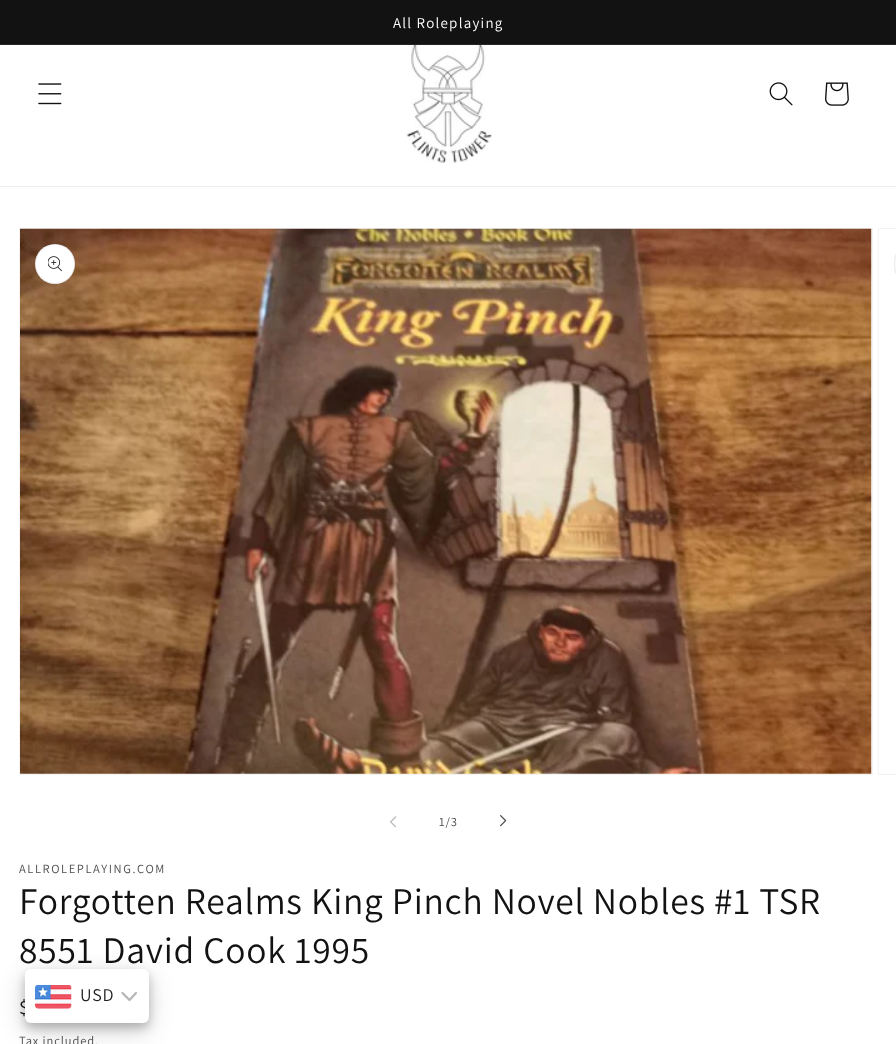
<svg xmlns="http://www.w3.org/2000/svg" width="896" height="1044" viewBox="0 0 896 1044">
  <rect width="100%" height="100%" fill="rgb(255,255,255)"/>
  <rect x="0" y="0" width="896" height="44" fill="rgb(18,18,18)"/>
  <rect x="0" y="44" width="896" height="1" fill="rgb(37,37,37)"/>
  <text x="393" y="28" font-family="Assistant" font-size="15" letter-spacing="1.25" fill="rgb(255,255,255)">All Roleplaying</text>
  <rect x="0" y="186" width="896" height="1" fill="rgb(236,236,236)"/>
  <image x="38" y="83" width="24" height="22" href="pic1.png"/>
  <image x="405" y="45" width="87" height="118" href="pic2.png"/>
  <image x="769" y="82" width="24" height="24" href="pic3.png"/>
  <image x="825" y="82" width="24" height="24" href="pic4.png"/>
  <rect x="19.5" y="228.5" width="853" height="546" fill="none" stroke="rgb(243,243,243)"/>
  <image x="20" y="228" width="852" height="546" href="pic5.png"/>
  <circle cx="55" cy="264" r="20" fill="rgb(255,255,255)"/>
  <circle cx="55" cy="264" r="19.5" fill="none" stroke="rgba(18,18,18,0.1)"/>
  <image x="48" y="256" width="14" height="16" href="pic6.png"/>
  <rect x="878.5" y="228.5" width="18" height="546" fill="none" stroke="rgb(243,243,243)"/>
  <rect x="894.5" y="244.5" width="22" height="39" rx="19.5" fill="none" stroke="rgb(231,231,231)"/>
  <image x="390" y="816" width="7" height="12" href="pic7.png"/>
  <text x="439" y="826" font-family="Assistant" font-size="12.5" letter-spacing="0.9" fill="rgb(77,77,77)">1/3</text>
  <image x="500" y="815" width="7" height="12" href="pic8.png"/>
  <text x="19" y="873" font-family="Assistant" font-size="12.5" letter-spacing="1.6" fill="rgb(77,77,77)">ALLROLEPLAYING.COM</text>
  <g font-family="Assistant" font-size="37.5" letter-spacing="0.75" fill="rgb(18,18,18)">
    <text>
      <tspan x="19" y="914">Forgotten Realms King Pinch Novel Nobles #1 TSR</tspan>
      <tspan x="19" y="963">8551 David Cook 1995</tspan>
    </text>
  </g>
  <text x="19" y="1014" font-family="Assistant" font-size="20" letter-spacing="1.6" fill="rgb(18,18,18)">$</text>
  <text x="19" y="1045" font-family="Assistant" font-size="12.5" letter-spacing="0.9" fill="rgb(77,77,77)">Tax included.</text>
  <rect x="25" y="976" width="124" height="54" rx="6" fill="rgba(0,0,0,0.19)" filter="blur(12.5px)"/>
  <rect x="25" y="974" width="124" height="54" rx="6" fill="rgba(0,0,0,0.2)" filter="blur(5px)"/>
  <rect x="25" y="969" width="124" height="54" rx="6" fill="rgb(255,255,255)"/>
  <image x="35" y="985" width="37" height="24" href="pic9.png"/>
  <text x="80" y="1001" font-family="Assistant" font-size="18" letter-spacing="0.75" fill="rgb(30,30,30)">USD</text>
  <path d="M122.5 993L129.5 1000L136 993" fill="none" stroke="rgb(183,183,183)" stroke-width="2.3" stroke-linecap="round" stroke-linejoin="round"/>
</svg>
